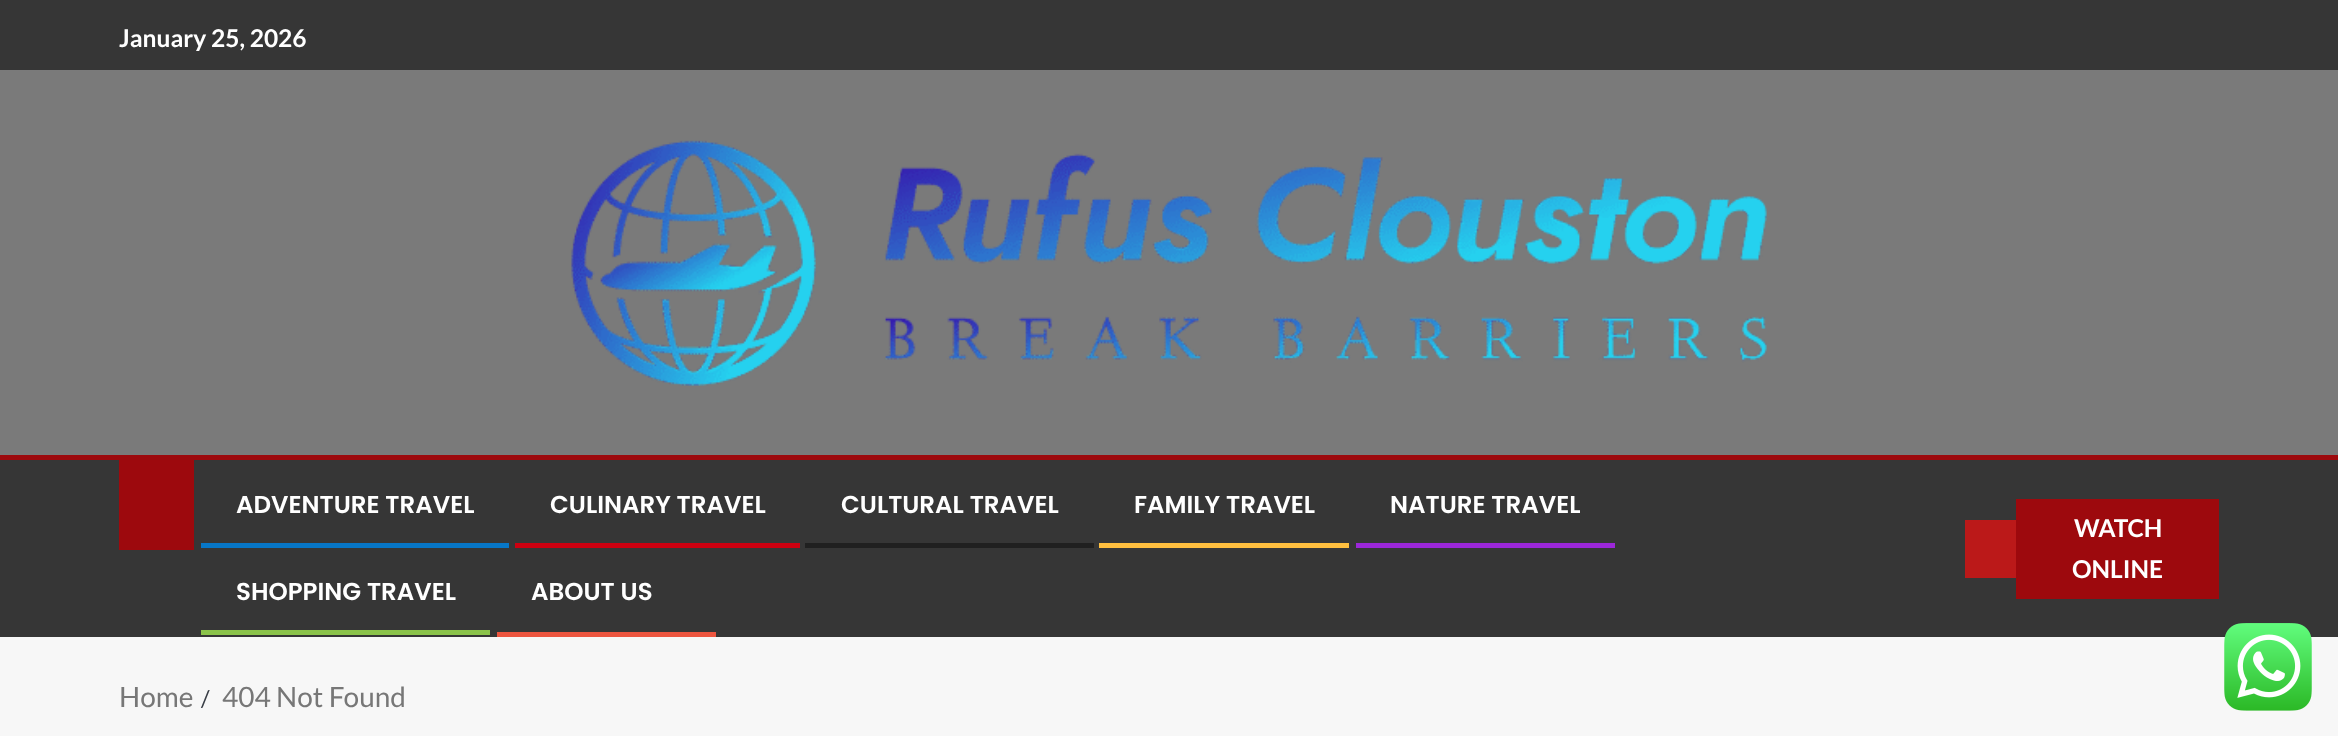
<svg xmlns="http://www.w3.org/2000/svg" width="2338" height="736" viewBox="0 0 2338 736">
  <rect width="100%" height="100%" fill="rgb(247,247,247)"/>
  <rect x="0" y="0" width="2338" height="70" fill="rgb(54,54,54)"/>
  <text x="119" y="47" font-family="Lato" font-size="24.5" font-weight="bold" fill="rgb(255,255,255)">January 25, 2026</text>
  <rect x="0" y="70" width="2338" height="385" fill="rgb(122,122,122)"/>
  <image x="571" y="140" width="1196" height="246" href="pic1.png"/>
  <rect x="0" y="460" width="2338" height="177" fill="rgb(54,54,54)"/>
  <rect x="0" y="455" width="2338" height="5" fill="rgb(157,9,13)"/>
  <rect x="119" y="460" width="75" height="90" fill="rgb(157,9,13)"/>
  <text x="236" y="513" font-family="Poppins" font-size="24.5" font-weight="600" fill="rgb(255,255,255)">ADVENTURE TRAVEL</text>
  <rect x="201" y="543" width="308" height="5" fill="rgb(7,118,198)"/>
  <text x="550" y="513" font-family="Poppins" font-size="24.5" font-weight="600" fill="rgb(255,255,255)">CULINARY TRAVEL</text>
  <rect x="515" y="543" width="285" height="5" fill="rgb(204,0,16)"/>
  <text x="841" y="513" font-family="Poppins" font-size="24.5" font-weight="600" fill="rgb(255,255,255)">CULTURAL TRAVEL</text>
  <rect x="805" y="543" width="289" height="5" fill="rgb(32,32,32)"/>
  <text x="1134" y="513" font-family="Poppins" font-size="24.5" font-weight="600" fill="rgb(255,255,255)">FAMILY TRAVEL</text>
  <rect x="1099" y="543" width="250" height="5" fill="rgb(255,191,63)"/>
  <text x="1390" y="513" font-family="Poppins" font-size="24.5" font-weight="600" fill="rgb(255,255,255)">NATURE TRAVEL</text>
  <rect x="1356" y="543" width="259" height="5" fill="rgb(156,39,217)"/>
  <text x="236" y="600" font-family="Poppins" font-size="24.5" font-weight="600" fill="rgb(255,255,255)">SHOPPING TRAVEL</text>
  <rect x="201" y="630" width="289" height="5" fill="rgb(139,195,74)"/>
  <text x="531" y="600" font-family="Poppins" font-size="24.5" font-weight="600" fill="rgb(255,255,255)">ABOUT US</text>
  <rect x="497" y="632" width="219" height="5" fill="rgb(237,85,63)"/>
  <rect x="1965" y="520" width="51" height="58" fill="rgb(187,25,25)"/>
  <rect x="2016" y="499" width="203" height="100" fill="rgb(157,9,13)"/>
  <g font-family="Lato" font-size="24.5" font-weight="bold" fill="rgb(255,255,255)">
    <text x="2074" y="537">WATCH</text>
    <text x="2072" y="578">ONLINE</text>
  </g>
  <text x="119" y="707" font-family="Lato" font-size="28" fill="rgb(119,119,119)">Home</text>
  <text x="201" y="707" font-family="Lato" font-size="23" fill="rgb(57,62,70)">/</text>
  <text x="222" y="707" font-family="Lato" font-size="28" fill="rgb(119,119,119)">404 Not Found</text>
  <image x="2224" y="623" width="88" height="88" href="pic2.png"/>
</svg>
